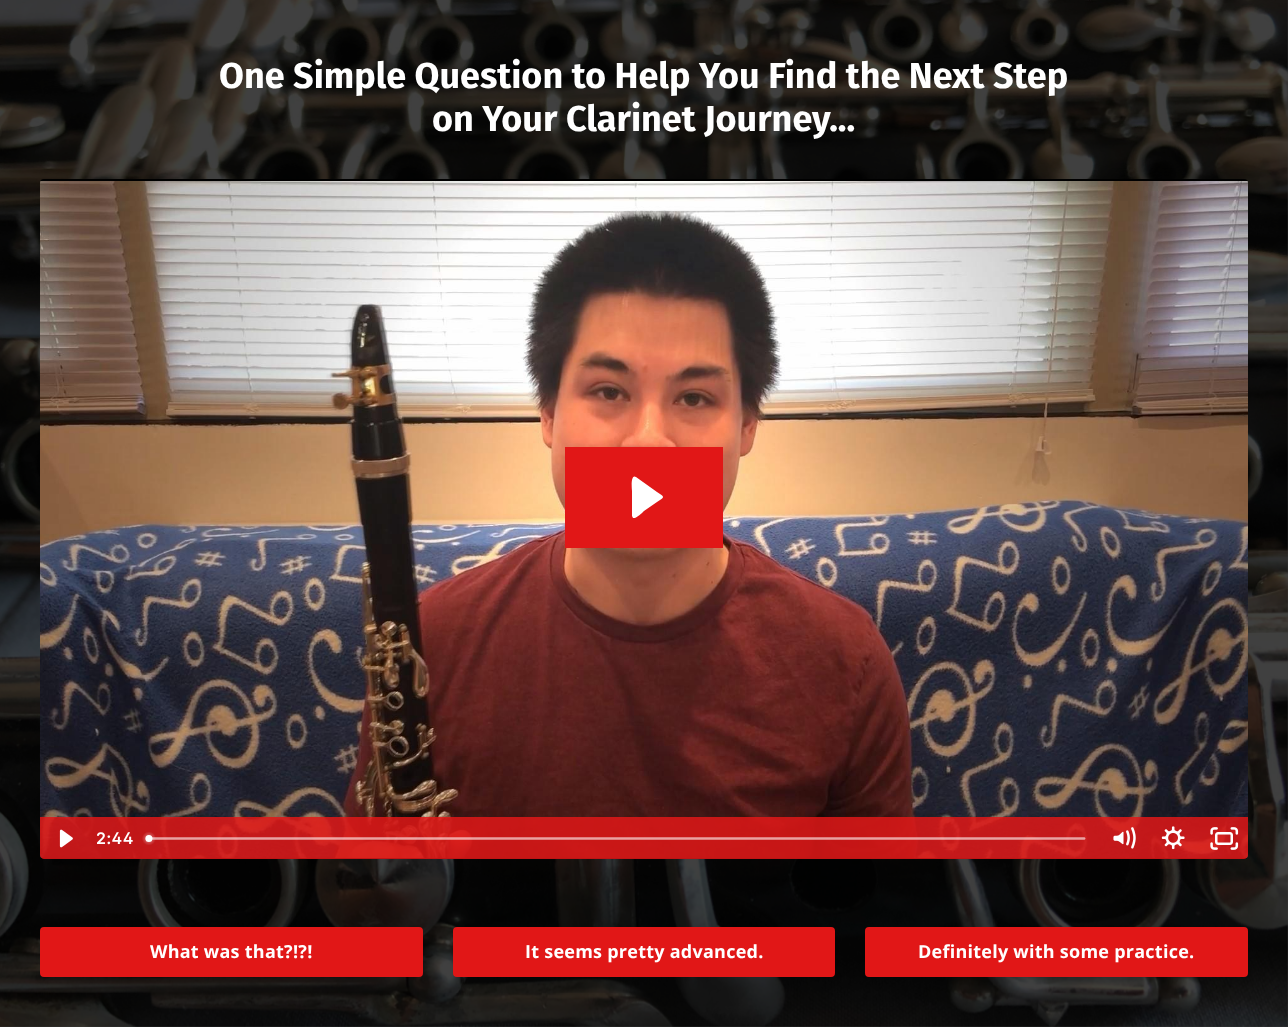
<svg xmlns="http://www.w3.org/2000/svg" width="1288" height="1027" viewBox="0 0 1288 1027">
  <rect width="100%" height="100%" fill="rgb(64,64,64)"/>
  <image x="0" y="0" width="1288" height="1027" href="pic1.png"/>
  <g font-family="Fira Sans" font-size="36" font-weight="bold" fill="rgb(255,255,255)">
    <text x="219" y="88">One Simple Question to Help You Find the Next Step</text>
    <text x="432" y="131">on Your Clarinet Journey...</text>
  </g>
  <rect x="40" y="179" width="1208" height="680" rx="4" fill="rgb(0,0,0)"/>
  <image x="40" y="181" width="1208" height="677" href="pic2.png"/>
  <rect x="565" y="447" width="158" height="101" fill="rgb(225,23,23)"/>
  <path d="M636 477C630 473 632 491 632 491V516L633 518C636 519 642 513 644 511L657 502C665 497 665 497 657 492Z" fill="rgb(255,255,255)" fill-rule="evenodd"/>
  <path d="M40 817H1248V855C1248 857 1246 859 1244 859H44C42 859 40 857 40 855Z" fill="rgba(225,23,23,0.85)"/>
  <image x="59" y="829" width="14" height="19" href="pic3.png"/>
  <text x="96" y="844" font-family="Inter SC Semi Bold" font-size="16" font-weight="600" letter-spacing="0.5" fill="rgb(255,255,255)">2:44</text>
  <image x="142" y="832" width="944" height="13" href="pic4.png"/>
  <image x="1113" y="827" width="23" height="22" href="pic5.png"/>
  <image x="1161" y="826" width="24" height="24" href="pic6.png"/>
  <image x="1210" y="827" width="29" height="23" href="pic7.png"/>
  <rect x="41" y="928" width="381" height="48" rx="3" fill="rgb(225,23,23)" stroke="rgb(225,23,23)" stroke-width="2"/>
  <text x="150" y="958" font-family="Open Sans" font-size="18" font-weight="bold" letter-spacing="0.25" fill="rgb(255,255,255)">What was that?!?!</text>
  <rect x="454" y="928" width="380" height="48" rx="3" fill="rgb(225,23,23)" stroke="rgb(225,23,23)" stroke-width="2"/>
  <text x="525" y="958" font-family="Open Sans" font-size="18" font-weight="bold" letter-spacing="0.25" fill="rgb(255,255,255)">It seems pretty advanced.</text>
  <rect x="866" y="928" width="381" height="48" rx="3" fill="rgb(225,23,23)" stroke="rgb(225,23,23)" stroke-width="2"/>
  <text x="918" y="958" font-family="Open Sans" font-size="18" font-weight="bold" letter-spacing="0.25" fill="rgb(255,255,255)">Definitely with some practice.</text>
</svg>
